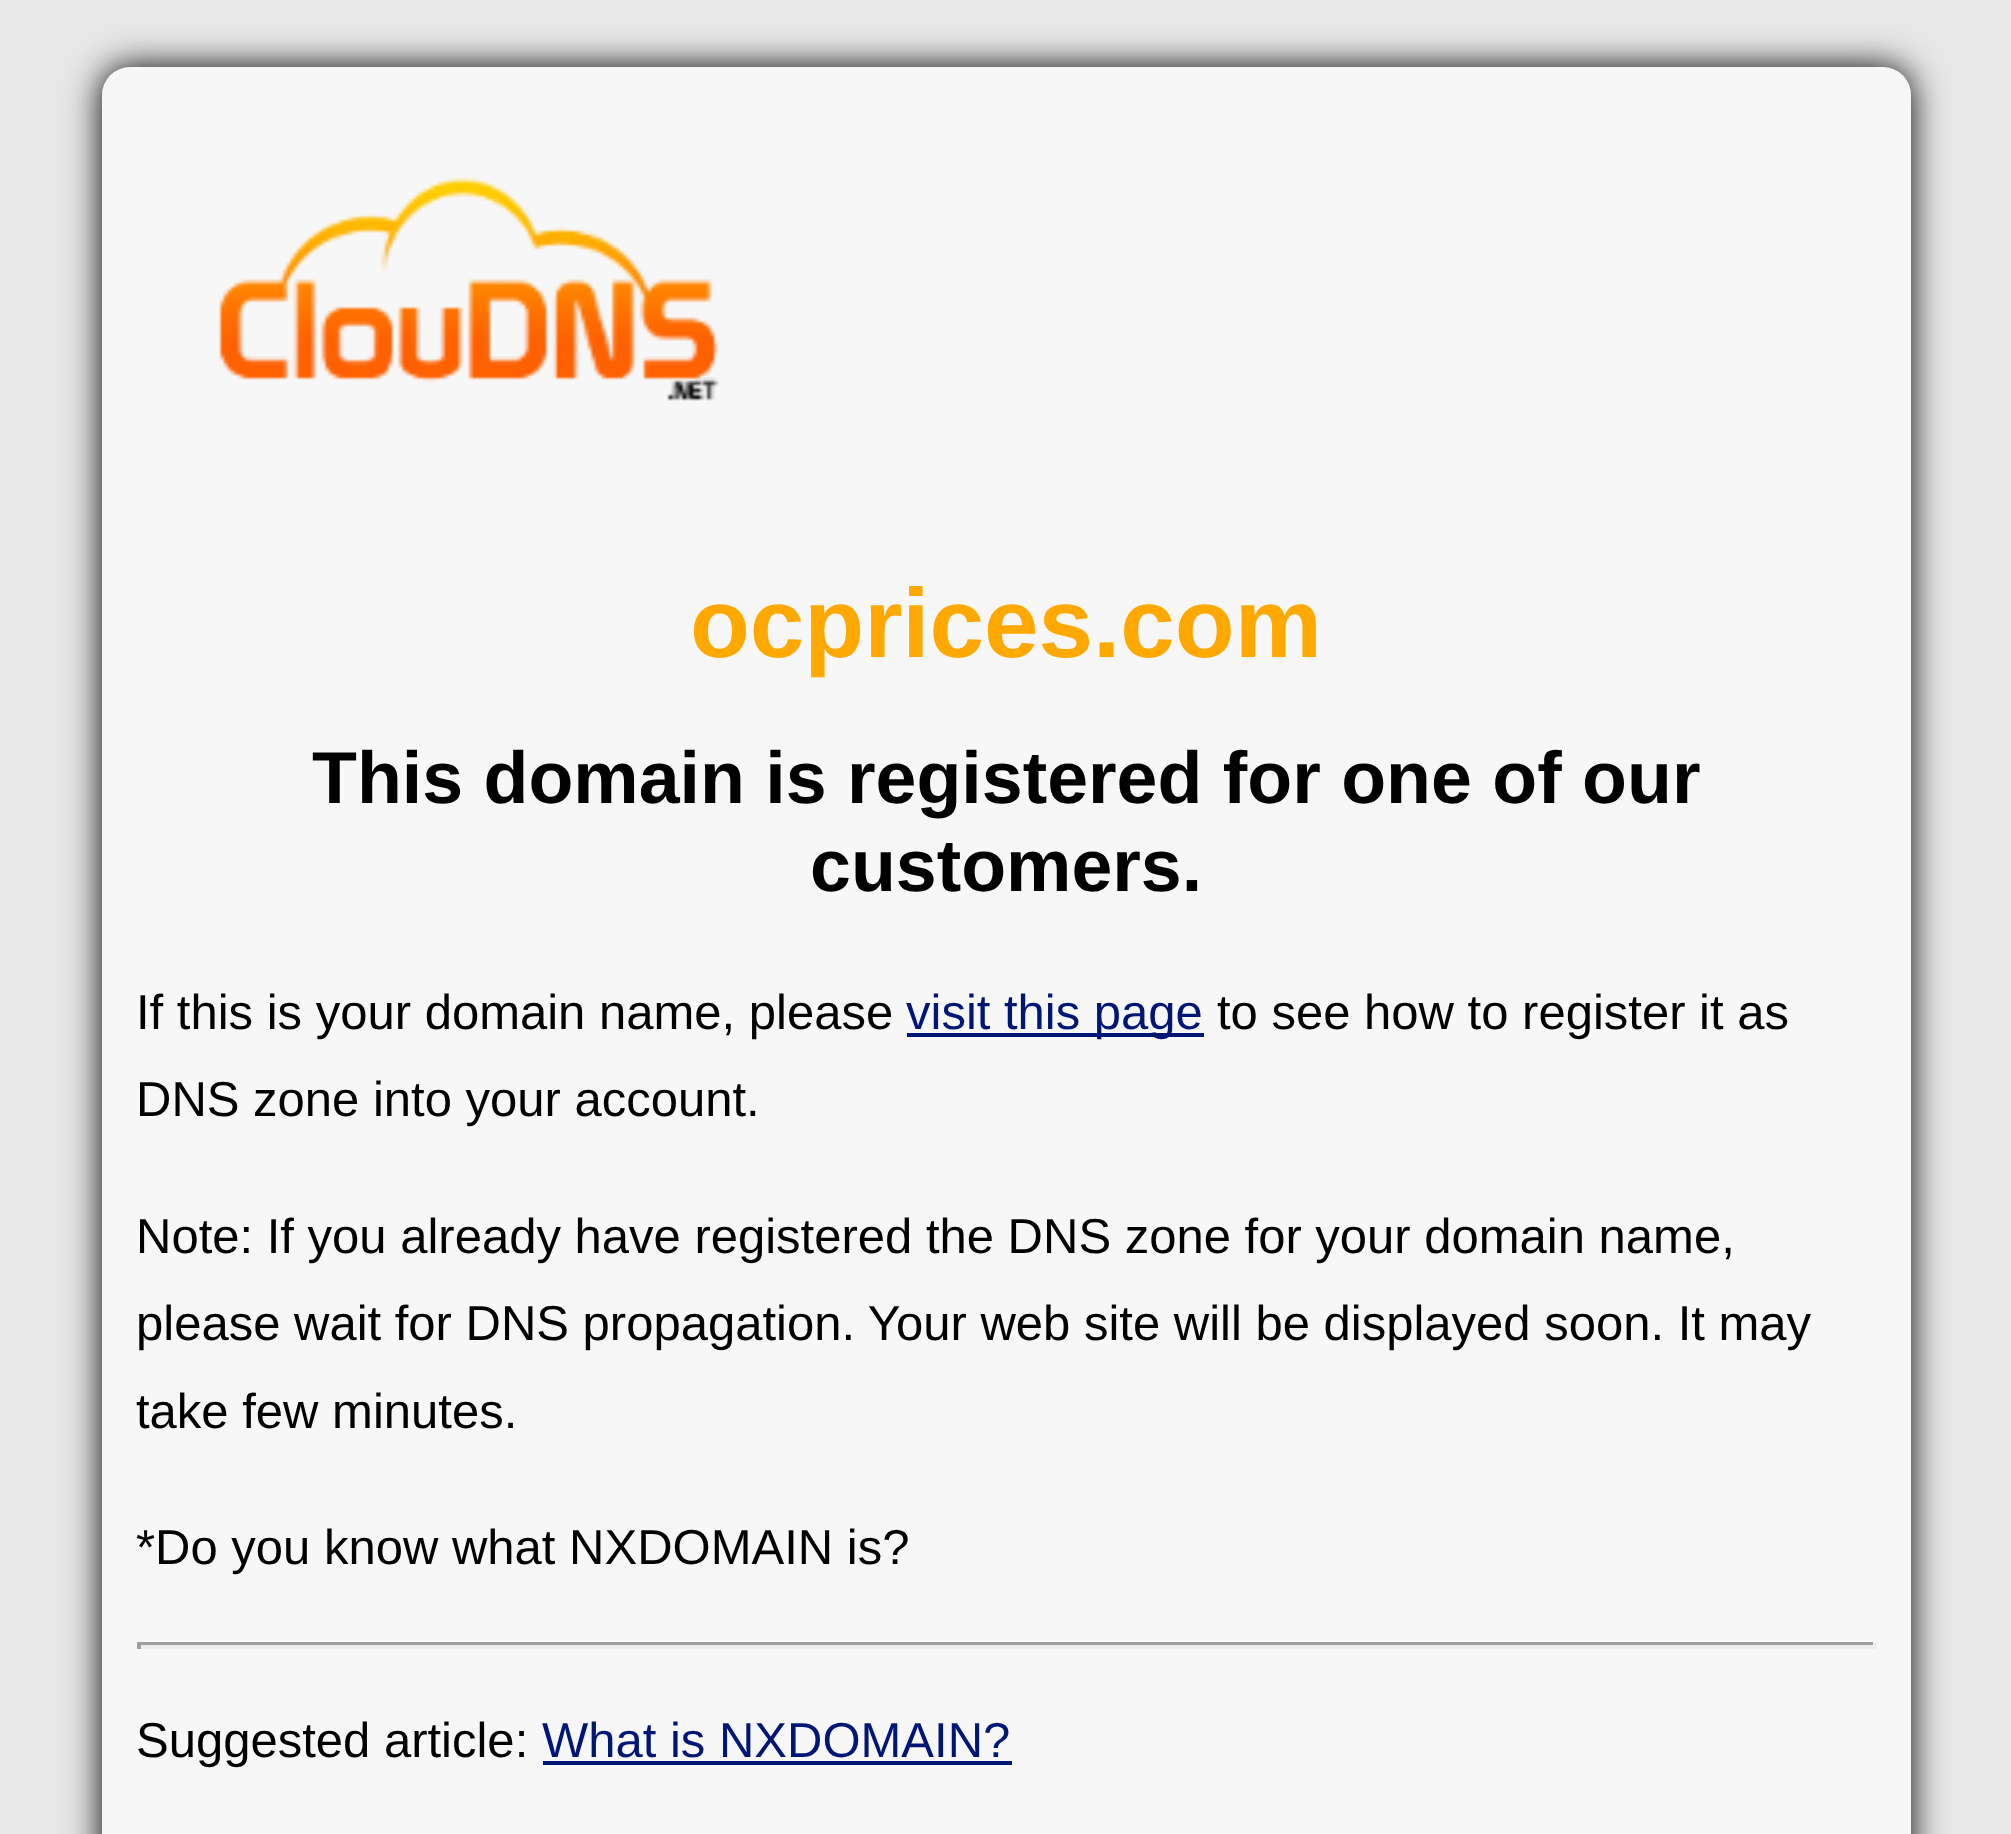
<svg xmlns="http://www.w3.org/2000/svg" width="2011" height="1834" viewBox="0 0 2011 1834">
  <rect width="100%" height="100%" fill="rgb(231,231,231)"/>
  <rect x="102" y="67" width="1809" height="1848" rx="28" fill="rgb(0,0,0)" filter="blur(17.5px)"/>
  <rect x="102" y="67" width="1809" height="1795" rx="28" fill="rgb(247,247,247)"/>
  <image x="219" y="177" width="500" height="224" href="pic1.png"/>
  <text x="690" y="657" font-family="Liberation Sans" font-size="98" font-weight="bold" fill="rgb(255,169,0)">ocprices.com</text>
  <g font-family="Liberation Sans" font-size="73.5" font-weight="bold" fill="rgb(0,0,0)">
    <text x="312" y="803">This domain is registered for one of our</text>
    <text x="810" y="891">customers.</text>
  </g>
  <text x="136" y="1029" font-family="Liberation Sans" font-size="49" fill="rgb(0,0,0)">If this is your domain name, please</text>
  <rect x="907" y="1033" width="297" height="4" fill="rgb(0,22,119)"/>
  <text x="906" y="1029" font-family="Liberation Sans" font-size="49" fill="rgb(0,22,119)">visit this page</text>
  <g font-family="Liberation Sans" font-size="49" fill="rgb(0,0,0)">
    <text x="1217" y="1029">to see how to register it as</text>
    <text x="136" y="1116">DNS zone into your account.</text>
    <text>
      <tspan x="136" y="1253">Note: If you already have registered the DNS zone for your domain name,</tspan>
      <tspan x="136" y="1340">please wait for DNS propagation. Your web site will be displayed soon. It may</tspan>
      <tspan x="136" y="1428">take few minutes.</tspan>
    </text>
    <text x="136" y="1564">*Do you know what NXDOMAIN is?</text>
  </g>
  <rect x="137" y="1642" width="1739" height="3" fill="rgb(159,159,159)"/>
  <rect x="1873" y="1642" width="4" height="7" fill="rgb(238,238,238)"/>
  <rect x="137" y="1645" width="1739" height="4" fill="rgb(238,238,238)"/>
  <rect x="137" y="1642" width="4" height="7" fill="rgb(159,159,159)"/>
  <text x="136" y="1757" font-family="Liberation Sans" font-size="49" fill="rgb(0,0,0)">Suggested article:</text>
  <text x="542" y="1757" font-family="Liberation Sans" font-size="49" fill="rgb(0,22,119)">What is NXDOMAIN?</text>
  <rect x="543" y="1761" width="469" height="4" fill="rgb(0,22,119)"/>
</svg>
